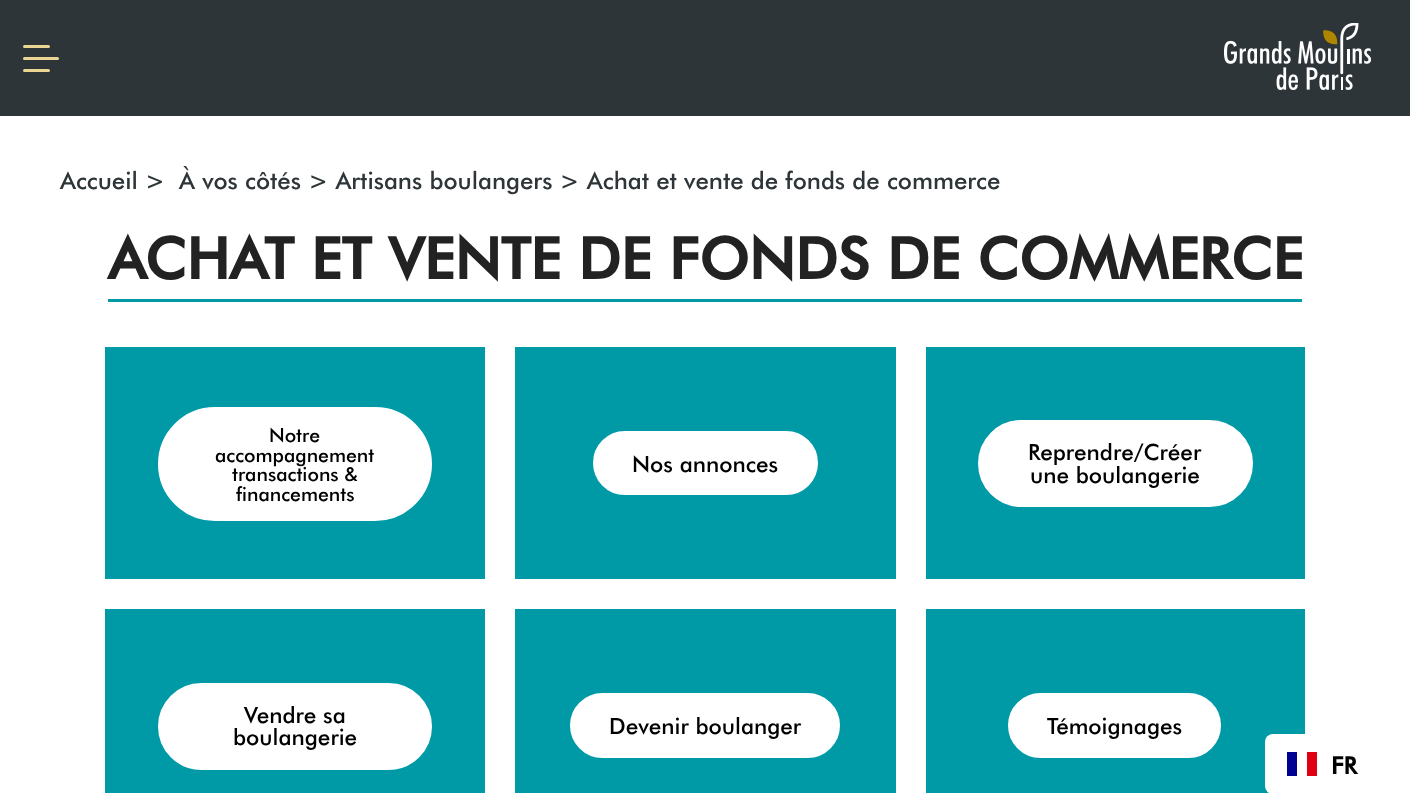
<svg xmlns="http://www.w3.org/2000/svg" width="1410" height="793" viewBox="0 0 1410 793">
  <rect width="100%" height="100%" fill="rgb(255,255,255)"/>
  <rect x="0" y="0" width="1410" height="116" fill="rgb(46,53,56)"/>
  <rect x="23" y="57" width="36" height="3" rx="1.5" fill="rgb(235,213,149)"/>
  <rect x="23" y="45" width="27" height="3" rx="1.5" fill="rgb(235,213,149)"/>
  <rect x="23" y="69" width="27" height="3" rx="1.5" fill="rgb(235,213,149)"/>
  <image x="1224" y="23" width="147" height="67" href="pic1.png"/>
  <g font-family="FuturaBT" font-size="24" font-weight="500" fill="rgb(46,53,56)">
    <text x="60" y="189">Accueil &gt;</text>
    <text x="179" y="189">À vos côtés &gt; Artisans boulangers &gt; Achat et vente de fonds de commerce</text>
  </g>
  <rect x="108" y="299" width="1194" height="3" fill="rgb(0,154,167)"/>
  <text x="108" y="279" font-family="FuturaBT" font-size="57.6" font-weight="bold" fill="rgb(34,34,34)">ACHAT ET VENTE DE FONDS DE COMMERCE</text>
  <rect x="105" y="347" width="380" height="232" fill="rgb(0,154,167)"/>
  <rect x="159.5" y="408.5" width="271" height="111" rx="55.5" fill="rgb(255,255,255)" stroke="rgb(255,255,255)" stroke-width="3"/>
  <g font-family="FuturaBT" font-size="19.5" font-weight="500" fill="rgb(0,0,0)">
    <text x="269" y="442">Notre</text>
    <text x="215" y="462">accompagnement</text>
    <text x="232" y="481">transactions &amp;</text>
    <text x="236" y="501">financements</text>
  </g>
  <rect x="515" y="347" width="381" height="232" fill="rgb(0,154,167)"/>
  <rect x="594.5" y="432.5" width="222" height="61" rx="30.5" fill="rgb(255,255,255)" stroke="rgb(255,255,255)" stroke-width="3"/>
  <text x="632" y="472" font-family="FuturaBT" font-size="22.5" font-weight="500" fill="rgb(0,0,0)">Nos annonces</text>
  <rect x="926" y="347" width="379" height="232" fill="rgb(0,154,167)"/>
  <rect x="979.5" y="421.5" width="272" height="84" rx="42" fill="rgb(255,255,255)" stroke="rgb(255,255,255)" stroke-width="3"/>
  <g font-family="FuturaBT" font-size="22.5" font-weight="500" fill="rgb(0,0,0)">
    <text x="1028" y="460">Reprendre/Créer</text>
    <text x="1030" y="483">une boulangerie</text>
  </g>
  <rect x="105" y="609" width="380" height="184" fill="rgb(0,154,167)"/>
  <rect x="159.5" y="684.5" width="271" height="84" rx="42" fill="rgb(255,255,255)" stroke="rgb(255,255,255)" stroke-width="3"/>
  <g font-family="FuturaBT" font-size="22.5" font-weight="500" fill="rgb(0,0,0)">
    <text x="244" y="723">Vendre sa</text>
    <text x="233" y="745">boulangerie</text>
  </g>
  <rect x="515" y="609" width="381" height="184" fill="rgb(0,154,167)"/>
  <rect x="571.5" y="694.5" width="267" height="62" rx="31" fill="rgb(255,255,255)" stroke="rgb(255,255,255)" stroke-width="3"/>
  <text x="609" y="734" font-family="FuturaBT" font-size="22.5" font-weight="500" fill="rgb(0,0,0)">Devenir boulanger</text>
  <rect x="926" y="609" width="379" height="184" fill="rgb(0,154,167)"/>
  <rect x="1009.5" y="694.5" width="210" height="62" rx="31" fill="rgb(255,255,255)" stroke="rgb(255,255,255)" stroke-width="3"/>
  <text x="1047" y="734" font-family="FuturaBT" font-size="22.5" font-weight="500" fill="rgb(0,0,0)">Témoignages</text>
  <rect x="1265" y="734" width="115" height="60" rx="8" fill="rgb(255,255,255)"/>
  <rect x="1287" y="752" width="10" height="24" fill="rgb(0,0,145)"/>
  <rect x="1307" y="752" width="10" height="24" fill="rgb(225,0,15)"/>
  <text x="1331" y="774" font-family="FuturaBT" font-size="24" font-weight="bold" fill="rgb(0,0,0)">FR</text>
</svg>
